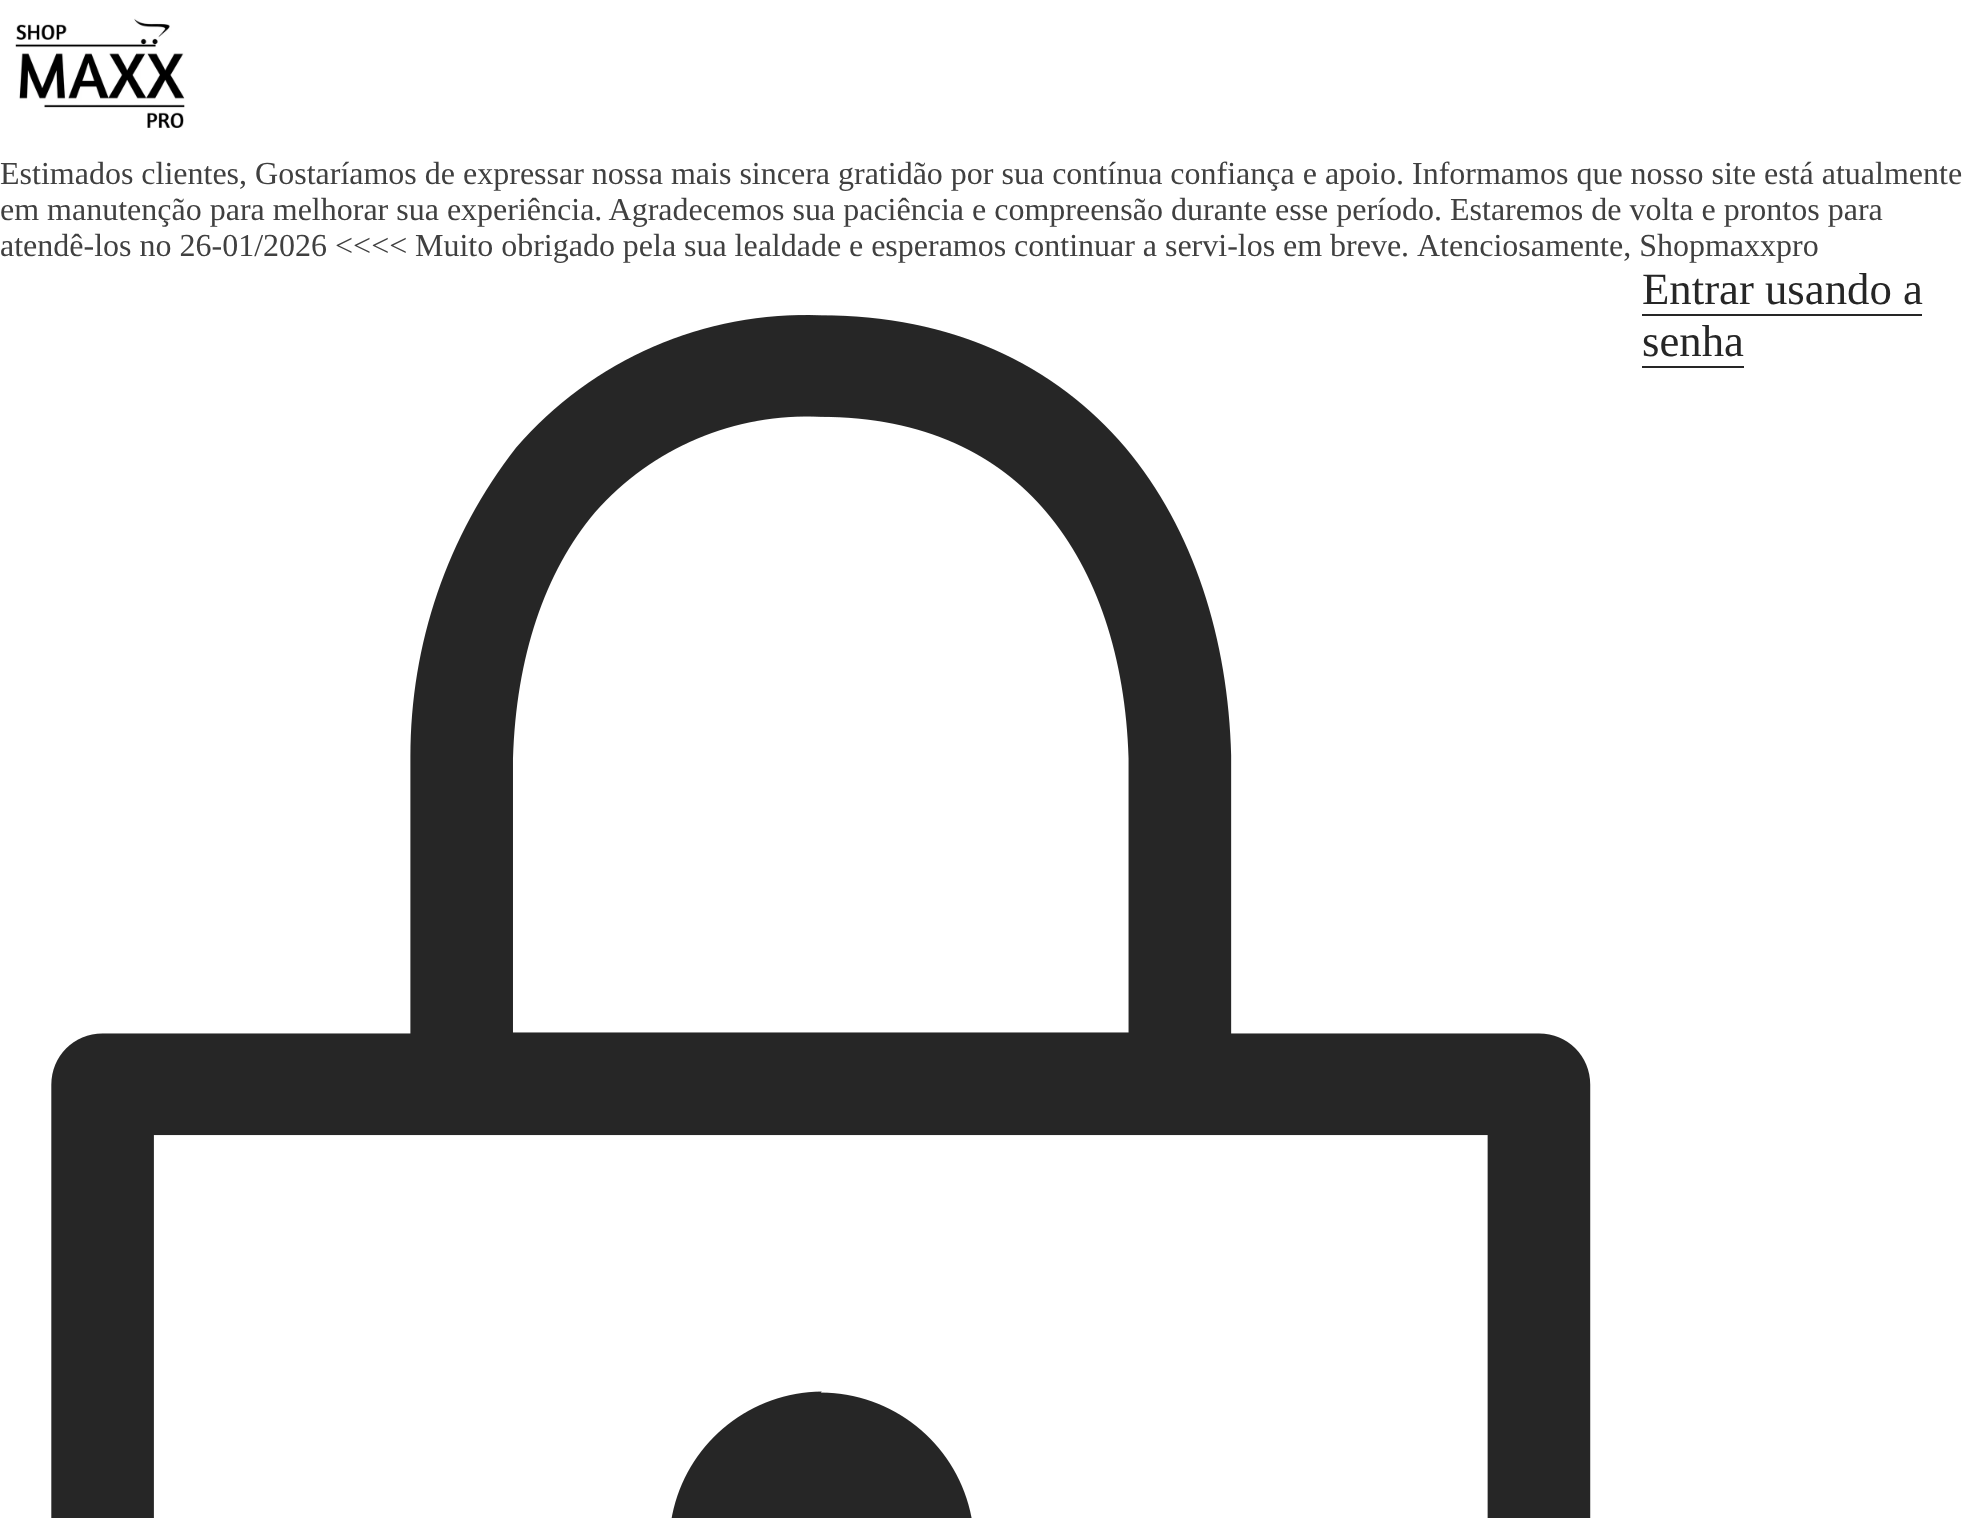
<svg xmlns="http://www.w3.org/2000/svg" width="1969" height="1518" viewBox="0 0 1969 1518">
  <rect width="100%" height="100%" fill="rgb(255,255,255)"/>
  <image x="15" y="18" width="170" height="110" href="pic1.png"/>
  <g font-family="Liberation Serif" font-size="32" fill="rgb(64,64,64)">
    <text>
      <tspan x="0" y="184">Estimados clientes, Gostaríamos de expressar nossa mais sincera gratidão por sua contínua confiança e apoio. Informamos que nosso site está atualmente</tspan>
      <tspan x="0" y="220">em manutenção para melhorar sua experiência. Agradecemos sua paciência e compreensão durante esse período. Estaremos de volta e prontos para</tspan>
      <tspan x="0" y="256">atendê-los no 26-01/2026 &lt;&lt;&lt;&lt;</tspan>
    </text>
    <text x="415" y="256" word-spacing="-0.1">Muito obrigado pela sua lealdade e esperamos continuar a servi-los em breve.</text>
    <text x="1417" y="256">Atenciosamente, Shopmaxxpro</text>
  </g>
  <text x="1642" y="304" font-family="Liberation Serif" font-size="44.75" fill="rgb(38,38,38)">Entrar usando a</text>
  <image x="51" y="315" width="1540" height="1203" href="pic2.png"/>
  <text x="1642" y="356" font-family="Liberation Serif" font-size="44.75" fill="rgb(38,38,38)">senha</text>
  <rect x="1642" y="314" width="280" height="2" fill="rgb(38,38,38)"/>
  <rect x="1642" y="366" width="102" height="2" fill="rgb(38,38,38)"/>
</svg>
